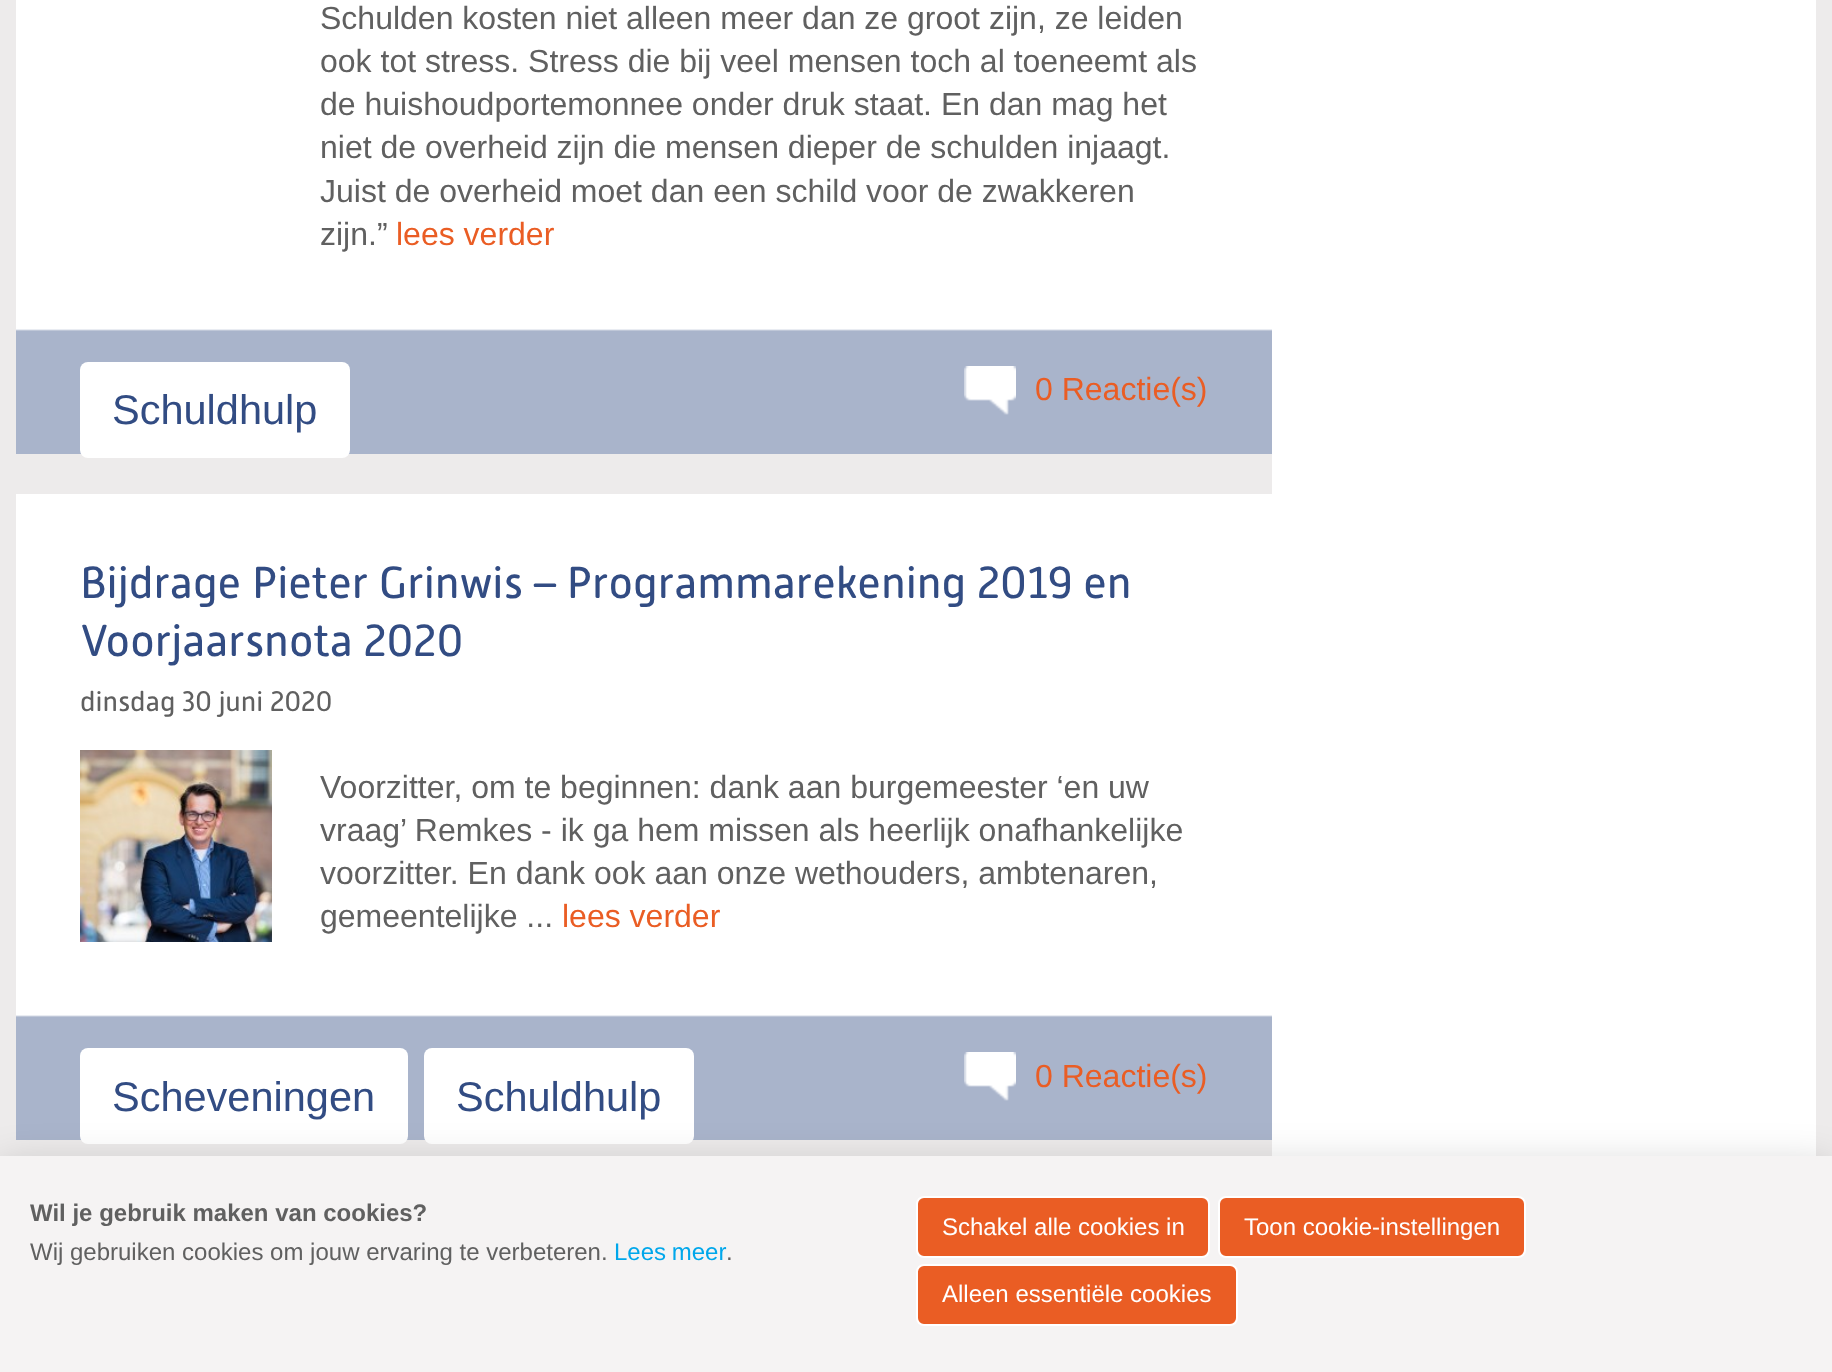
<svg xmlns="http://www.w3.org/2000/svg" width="1832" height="1372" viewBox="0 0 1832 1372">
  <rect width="100%" height="100%" fill="rgb(237,235,235)"/>
  <rect x="16" y="0" width="1800" height="1156" fill="rgb(255,255,255)"/>
  <image x="16" y="329" width="1256" height="125" href="pic1.png"/>
  <g font-family="Liberation Sans" font-size="32" fill="rgb(96,96,96)">
    <text>
      <tspan x="320" y="29">Schulden kosten niet alleen meer dan ze groot zijn, ze leiden</tspan>
      <tspan x="320" y="72">ook tot stress. Stress die bij veel mensen toch al toeneemt als</tspan>
      <tspan x="320" y="115">de huishoudportemonnee onder druk staat. En dan mag het</tspan>
      <tspan x="320" y="158">niet de overheid zijn die mensen dieper de schulden injaagt.</tspan>
      <tspan x="320" y="202">Juist de overheid moet dan een schild voor de zwakkeren</tspan>
      <tspan x="320" y="245">zijn.”</tspan>
    </text>
  </g>
  <text x="396" y="245" font-family="Liberation Sans" font-size="32" fill="rgb(234,93,36)">lees verder</text>
  <rect x="16" y="454" width="1256" height="40" fill="rgb(237,235,235)"/>
  <rect x="80" y="362" width="270" height="96" rx="8" fill="rgb(255,255,255)"/>
  <text x="112" y="424" font-family="Liberation Sans" font-size="41.5" fill="rgb(50,76,131)">Schuldhulp</text>
  <image x="964" y="366" width="52" height="49" href="pic2.png"/>
  <text x="1035" y="400" font-family="Liberation Sans" font-size="32" fill="rgb(234,93,36)">0 Reactie(s)</text>
  <image x="16" y="1015" width="1256" height="125" href="pic1.png"/>
  <g font-family="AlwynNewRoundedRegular" font-size="44.8" fill="rgb(50,76,131)">
    <text>
      <tspan x="80" y="598">Bijdrage Pieter Grinwis – Programmarekening 2019 en</tspan>
      <tspan x="80" y="656">Voorjaarsnota 2020</tspan>
    </text>
  </g>
  <text x="80" y="711" font-family="AlwynNewRoundedRegular" font-size="28" fill="rgb(96,96,96)">dinsdag 30 juni 2020</text>
  <image x="80" y="750" width="192" height="192" href="pic3.png"/>
  <g font-family="Liberation Sans" font-size="32" fill="rgb(96,96,96)">
    <text>
      <tspan x="320" y="798">Voorzitter, om te beginnen: dank aan burgemeester ‘en uw</tspan>
      <tspan x="320" y="841">vraag’ Remkes - ik ga hem missen als heerlijk onafhankelijke</tspan>
      <tspan x="320" y="884">voorzitter. En dank ook aan onze wethouders, ambtenaren,</tspan>
      <tspan x="320" y="927">gemeentelijke ...</tspan>
    </text>
  </g>
  <text x="562" y="927" font-family="Liberation Sans" font-size="32" fill="rgb(234,93,36)">lees verder</text>
  <rect x="16" y="1140" width="1256" height="16" fill="rgb(237,235,235)"/>
  <rect x="80" y="1048" width="328" height="96" rx="8" fill="rgb(255,255,255)"/>
  <text x="112" y="1111" font-family="Liberation Sans" font-size="41.5" fill="rgb(50,76,131)">Scheveningen</text>
  <rect x="424" y="1048" width="270" height="96" rx="8" fill="rgb(255,255,255)"/>
  <text x="456" y="1111" font-family="Liberation Sans" font-size="41.5" fill="rgb(50,76,131)">Schuldhulp</text>
  <image x="964" y="1052" width="52" height="49" href="pic2.png"/>
  <text x="1035" y="1087" font-family="Liberation Sans" font-size="32" fill="rgb(234,93,36)">0 Reactie(s)</text>
  <rect x="0" y="1166" width="1832" height="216" fill="rgba(0,0,0,0.2)" filter="blur(20px)"/>
  <rect x="0" y="1156" width="1832" height="216" fill="rgb(245,243,243)"/>
  <text x="30" y="1221" font-family="Liberation Sans" font-size="24" font-weight="bold" fill="rgb(96,96,96)">Wil je gebruik maken van cookies?</text>
  <text x="30" y="1260" font-family="Liberation Sans" font-size="24" fill="rgb(96,96,96)">Wij gebruiken cookies om jouw ervaring te verbeteren.</text>
  <text x="614" y="1260" word-spacing="-1" font-family="Liberation Sans" font-size="24" fill="rgb(0,167,235)">Lees meer</text>
  <text x="726" y="1260" font-family="Liberation Sans" font-size="24" fill="rgb(96,96,96)">.</text>
  <rect x="917" y="1197" width="292" height="60" rx="7" fill="rgb(234,93,36)" stroke="rgb(255,255,255)" stroke-width="2"/>
  <text x="942" y="1235" font-family="Liberation Sans" font-size="24" fill="rgb(255,255,255)">Schakel alle cookies in</text>
  <rect x="1219" y="1197" width="306" height="60" rx="7" fill="rgb(234,93,36)" stroke="rgb(255,255,255)" stroke-width="2"/>
  <text x="1244" y="1235" font-family="Liberation Sans" font-size="24" fill="rgb(255,255,255)">Toon cookie-instellingen</text>
  <rect x="917" y="1265" width="320" height="60" rx="7" fill="rgb(234,93,36)" stroke="rgb(255,255,255)" stroke-width="2"/>
  <text x="942" y="1302" font-family="Liberation Sans" font-size="24" fill="rgb(255,255,255)">Alleen essentiële cookies</text>
</svg>
